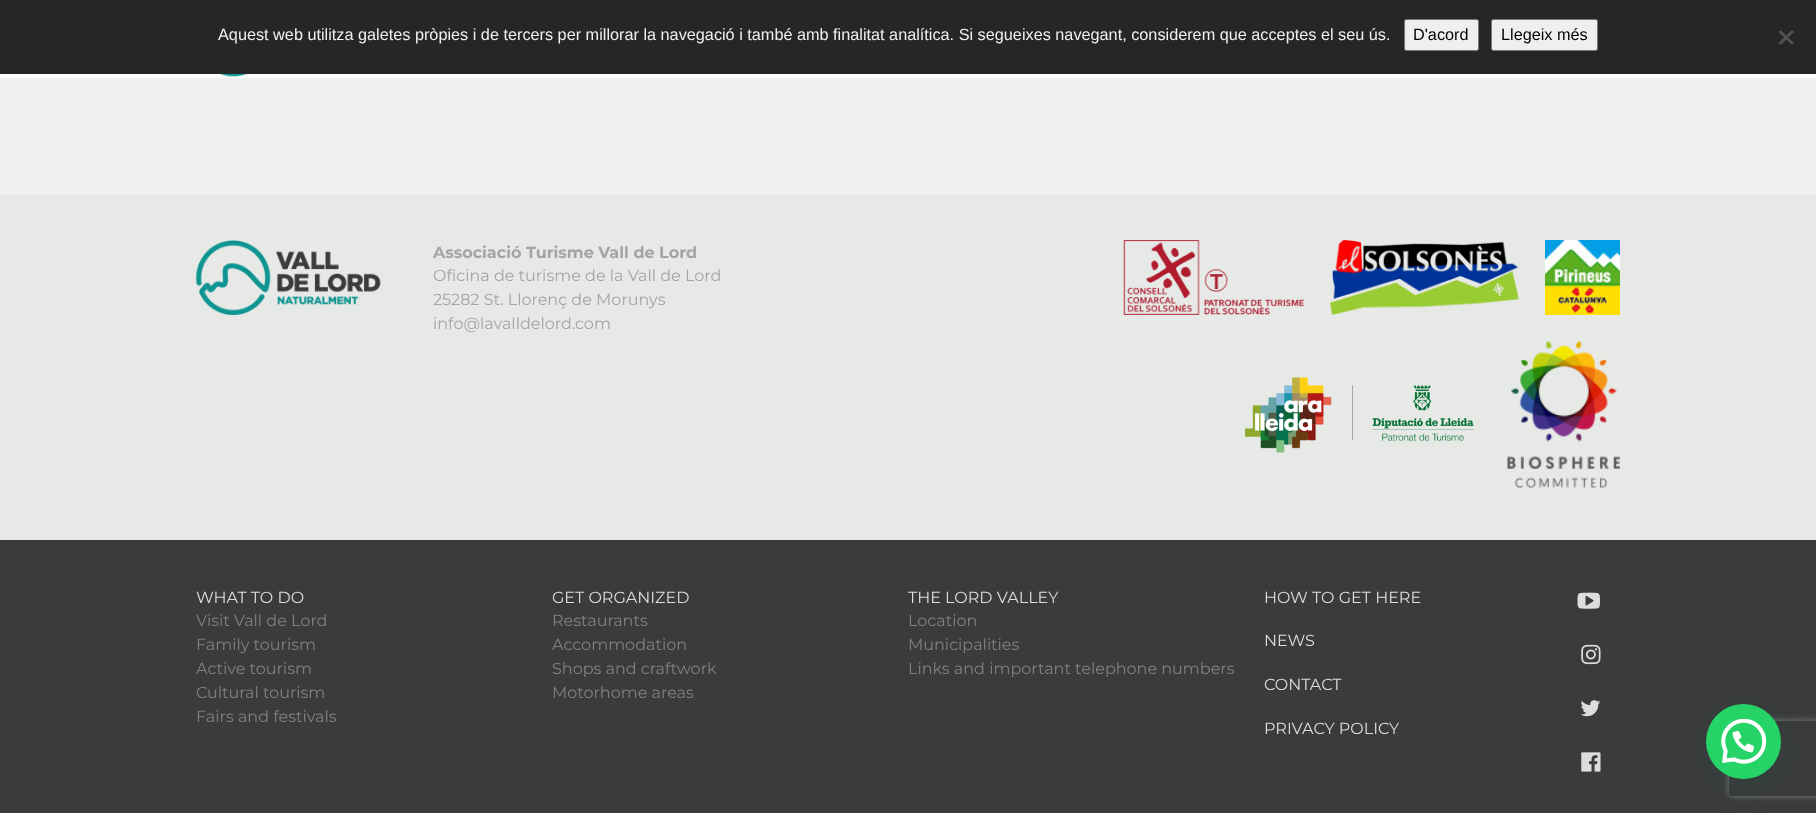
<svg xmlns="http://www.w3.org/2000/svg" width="1816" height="813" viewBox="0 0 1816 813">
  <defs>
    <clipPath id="clip1"><path d="M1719 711H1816V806H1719ZM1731.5 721H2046.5C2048 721 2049 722 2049 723.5V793.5C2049 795 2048 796 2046.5 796H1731.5C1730 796 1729 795 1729 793.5V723.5C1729 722 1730 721 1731.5 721Z" clip-rule="evenodd"/></clipPath>
  </defs>
  <rect width="100%" height="100%" fill="rgb(239,241,238)"/>
  <rect x="0" y="0" width="1816" height="74" fill="rgb(38,38,38)"/>
  <text x="218" y="40" font-family="Liberation Sans" font-size="16.25" fill="rgb(239,241,238)">Aquest web utilitza galetes pròpies i de tercers per millorar la navegació i també amb finalitat analítica. Si segueixes navegant, considerem que acceptes el seu ús.</text>
  <rect x="1404.5" y="19.5" width="74" height="31" rx="2" fill="rgb(239,239,239)" stroke="rgb(118,118,118)"/>
  <text x="1413" y="40" font-family="Liberation Sans" font-size="16.25" fill="rgb(0,0,0)">D'acord</text>
  <rect x="1491.5" y="19.5" width="106" height="31" rx="2" fill="rgb(239,239,239)" stroke="rgb(118,118,118)"/>
  <text x="1501" y="40" font-family="Liberation Sans" font-size="16.25" fill="rgb(0,0,0)">Llegeix més</text>
  <path d="M1792 30L1794 32L1780.5 45L1778.5 43Z" fill="rgb(83,83,83)"/>
  <path d="M1778.5 32L1780.5 30L1794 43L1792 45Z" fill="rgb(83,83,83)"/>
  <rect x="0" y="74" width="1816" height="4" fill="rgb(253,254,253)"/>
  <image x="219" y="74" width="29" height="3" href="pic1.png"/>
  <rect x="0" y="195" width="1816" height="345" fill="rgb(231,233,230)"/>
  <image x="196" y="240" width="185" height="75" href="pic2.png"/>
  <text x="433" y="258" font-family="Montserrat" font-size="16" font-weight="bold" fill="rgb(164,164,164)">Associació Turisme Vall de Lord</text>
  <g font-family="Montserrat" font-size="16" fill="rgb(164,164,164)">
    <text>
      <tspan x="433" y="281">Oficina de turisme de la Vall de Lord</tspan>
      <tspan x="433" y="305">25282 St. Llorenç de Morunys</tspan>
      <tspan x="433" y="329">info@lavalldelord.com</tspan>
    </text>
  </g>
  <image x="1123" y="240" width="181" height="75" href="pic3.png"/>
  <image x="1330" y="240" width="189" height="75" href="pic4.png"/>
  <image x="1545" y="240" width="75" height="75" href="pic5.png"/>
  <image x="1245" y="377" width="229" height="76" href="pic6.png"/>
  <image x="1507" y="341" width="113" height="147" href="pic7.png"/>
  <rect x="0" y="540" width="1816" height="273" fill="rgb(59,59,58)"/>
  <text x="196" y="603" font-family="Montserrat" font-size="16" fill="rgb(221,221,221)">WHAT TO DO</text>
  <g font-family="Montserrat" font-size="16" fill="rgb(129,129,129)">
    <text>
      <tspan x="196" y="626">Visit Vall de Lord</tspan>
      <tspan x="196" y="650">Family tourism</tspan>
      <tspan x="196" y="674">Active tourism</tspan>
      <tspan x="196" y="698">Cultural tourism</tspan>
      <tspan x="196" y="722">Fairs and festivals</tspan>
    </text>
  </g>
  <text x="552" y="603" font-family="Montserrat" font-size="16" fill="rgb(221,221,221)">GET ORGANIZED</text>
  <g font-family="Montserrat" font-size="16" fill="rgb(129,129,129)">
    <text>
      <tspan x="552" y="626">Restaurants</tspan>
      <tspan x="552" y="650">Accommodation</tspan>
      <tspan x="552" y="674">Shops and craftwork</tspan>
      <tspan x="552" y="698">Motorhome areas</tspan>
    </text>
  </g>
  <text x="908" y="603" font-family="Montserrat" font-size="16" fill="rgb(221,221,221)">THE LORD VALLEY</text>
  <g font-family="Montserrat" font-size="16" fill="rgb(129,129,129)">
    <text>
      <tspan x="908" y="626">Location</tspan>
      <tspan x="908" y="650">Municipalities</tspan>
      <tspan x="908" y="674">Links and important telephone numbers</tspan>
    </text>
  </g>
  <g font-family="Montserrat" font-size="16" fill="rgb(221,221,221)">
    <text x="1264" y="603">HOW TO GET HERE</text>
    <text x="1264" y="646">NEWS</text>
    <text x="1264" y="690">CONTACT</text>
    <text x="1264" y="734">PRIVACY POLICY</text>
  </g>
  <image x="1577" y="592" width="23" height="17" href="pic8.png"/>
  <image x="1581" y="644" width="20" height="21" href="pic9.png"/>
  <image x="1580" y="700" width="21" height="17" href="pic10.png"/>
  <image x="1581" y="752" width="20" height="20" href="pic11.png"/>
  <rect x="1708" y="711" width="75" height="75" rx="37.5" fill="rgba(7,94,84,0.24)" filter="blur(15px)"/>
  <g clip-path="url(#clip1)">
    <rect x="1729" y="721" width="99" height="75" rx="2.5" fill="rgb(128,128,128)" filter="blur(3px)"/>
  </g>
  <circle cx="1743.5" cy="741.5" r="37.5" fill="rgb(37,211,102)"/>
  <image x="1721" y="719" width="45" height="45" href="pic12.png"/>
</svg>
